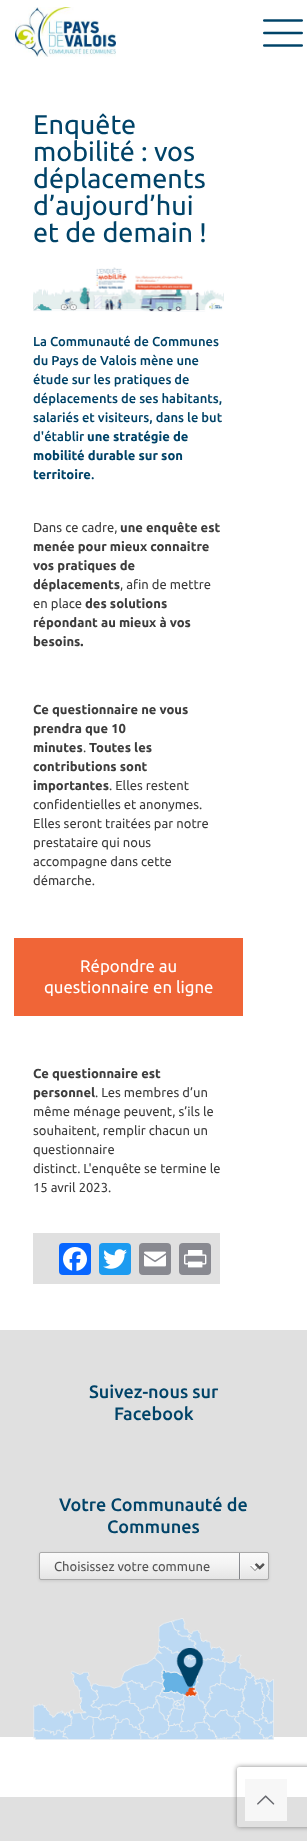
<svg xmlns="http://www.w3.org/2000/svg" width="307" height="1841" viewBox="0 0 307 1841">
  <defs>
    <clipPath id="clip1"><path d="M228 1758H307V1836H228ZM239 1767H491C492 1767 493 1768 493 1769V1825C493 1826 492 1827 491 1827H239C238 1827 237 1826 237 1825V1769C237 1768 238 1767 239 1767Z" clip-rule="evenodd"/></clipPath>
  </defs>
  <rect width="100%" height="100%" fill="rgb(255,255,255)"/>
  <image x="15" y="7" width="101" height="50" href="pic1.png"/>
  <image x="263" y="19" width="40" height="28" href="pic2.png"/>
  <g font-family="Ubuntu" font-size="27" fill="rgb(0,67,104)">
    <text>
      <tspan x="33" y="134">Enquête</tspan>
      <tspan x="33" y="161">mobilité : vos</tspan>
      <tspan x="33" y="188">déplacements</tspan>
      <tspan x="33" y="215">d’aujourd’hui</tspan>
      <tspan x="33" y="242">et de demain !</tspan>
    </text>
  </g>
  <image x="33" y="267" width="191" height="45" href="pic3.png"/>
  <g font-family="Ubuntu" font-size="13" font-weight="500" fill="rgb(0,67,104)">
    <text>
      <tspan x="33" y="346">La Communauté de Communes</tspan>
      <tspan x="33" y="365">du Pays de Valois mène une</tspan>
      <tspan x="33" y="384">étude sur les pratiques de</tspan>
      <tspan x="33" y="403">déplacements de ses habitants,</tspan>
      <tspan x="33" y="422">salariés et visiteurs, dans le but</tspan>
      <tspan x="33" y="441">d'établir</tspan>
    </text>
  </g>
  <g font-family="Ubuntu" font-size="13" font-weight="bold" fill="rgb(0,67,104)">
    <text x="87" y="441">une stratégie de</text>
    <text>
      <tspan x="33" y="460">mobilité durable sur son</tspan>
      <tspan x="33" y="479">territoire</tspan>
    </text>
  </g>
  <text x="91" y="479" font-family="Ubuntu" font-size="13" font-weight="500" fill="rgb(0,67,104)">.</text>
  <text x="33" y="532" font-family="Ubuntu" font-size="13" fill="rgb(61,61,61)">Dans ce cadre,</text>
  <g font-family="Ubuntu" font-size="13" font-weight="bold" fill="rgb(61,61,61)">
    <text x="120" y="532">une enquête est</text>
    <text>
      <tspan x="33" y="551">menée pour mieux connaitre</tspan>
      <tspan x="33" y="570">vos pratiques de</tspan>
      <tspan x="33" y="589">déplacements</tspan>
    </text>
  </g>
  <g font-family="Ubuntu" font-size="13" fill="rgb(61,61,61)">
    <text x="120" y="589">, afin de mettre</text>
    <text x="33" y="608">en place</text>
  </g>
  <g font-family="Ubuntu" font-size="13" font-weight="bold" fill="rgb(61,61,61)">
    <text x="85" y="608">des solutions</text>
    <text>
      <tspan x="33" y="627">répondant au mieux à vos</tspan>
      <tspan x="33" y="646">besoins.</tspan>
    </text>
    <text>
      <tspan x="33" y="714">Ce questionnaire ne vous</tspan>
      <tspan x="33" y="733">prendra que 10</tspan>
      <tspan x="33" y="752">minutes</tspan>
    </text>
  </g>
  <text x="83" y="752" font-family="Ubuntu" font-size="13" fill="rgb(61,61,61)">.</text>
  <g font-family="Ubuntu" font-size="13" font-weight="bold" fill="rgb(61,61,61)">
    <text x="89" y="752">Toutes les</text>
    <text>
      <tspan x="33" y="771">contributions sont</tspan>
      <tspan x="33" y="790">importantes</tspan>
    </text>
  </g>
  <g font-family="Ubuntu" font-size="13" fill="rgb(61,61,61)">
    <text x="109" y="790">. Elles restent</text>
    <text>
      <tspan x="33" y="809">confidentielles et anonymes.</tspan>
      <tspan x="33" y="828">Elles seront traitées par notre</tspan>
      <tspan x="33" y="847">prestataire qui nous</tspan>
      <tspan x="33" y="866">accompagne dans cette</tspan>
      <tspan x="33" y="885">démarche.</tspan>
    </text>
  </g>
  <rect x="14" y="938" width="229" height="78" fill="rgb(240,101,55)"/>
  <g font-family="Ubuntu" font-size="16.75" fill="rgb(255,255,255)">
    <text x="80" y="972">Répondre au</text>
    <text x="44" y="993">questionnaire en ligne</text>
  </g>
  <g font-family="Ubuntu" font-size="13" font-weight="bold" fill="rgb(61,61,61)">
    <text>
      <tspan x="33" y="1078">Ce questionnaire est</tspan>
      <tspan x="33" y="1097">personnel</tspan>
    </text>
  </g>
  <g font-family="Ubuntu" font-size="13" fill="rgb(61,61,61)">
    <text x="95" y="1097">. Les membres d’un</text>
    <text>
      <tspan x="33" y="1116">même ménage peuvent, s’ils le</tspan>
      <tspan x="33" y="1135">souhaitent, remplir chacun un</tspan>
      <tspan x="33" y="1154">questionnaire</tspan>
      <tspan x="33" y="1173">distinct. L'enquête se termine le</tspan>
      <tspan x="33" y="1192">15 avril 2023.</tspan>
    </text>
  </g>
  <rect x="33" y="1233" width="187" height="51" fill="rgb(224,224,224)"/>
  <rect x="59" y="1243" width="32" height="32" rx="4" fill="rgb(8,102,255)"/>
  <image x="63" y="1247" width="24" height="24" href="pic4.png"/>
  <rect x="99" y="1243" width="32" height="32" rx="4" fill="rgb(29,155,240)"/>
  <image x="103" y="1249" width="24" height="20" href="pic5.png"/>
  <rect x="139" y="1243" width="32" height="32" rx="4" fill="rgb(136,137,144)"/>
  <image x="144" y="1251" width="22" height="16" href="pic6.png"/>
  <rect x="179" y="1243" width="32" height="32" rx="4" fill="rgb(136,137,144)"/>
  <image x="184" y="1250" width="23" height="18" href="pic7.png"/>
  <rect x="0" y="1330" width="307" height="407" fill="rgb(224,224,224)"/>
  <g font-family="Ubuntu" font-size="18" font-weight="500" fill="rgb(0,67,104)">
    <text x="89" y="1398">Suivez-nous sur</text>
    <text x="114" y="1420">Facebook</text>
    <text x="59" y="1511">Votre Communauté de</text>
    <text x="107" y="1533">Communes</text>
  </g>
  <rect x="39" y="1553" width="230" height="28" rx="2" fill="rgba(0,0,0,0.1)" filter="blur(1.5px)"/>
  <image x="40" y="1553" width="228" height="26" href="pic8.png"/>
  <rect x="39.5" y="1552.5" width="229" height="27" rx="1.5" fill="none" stroke="rgb(170,170,170)"/>
  <path d="M255.5 1564L259.5 1568L263.5 1564" fill="none" stroke="rgb(85,85,85)" stroke-width="2"/>
  <text x="54" y="1571" font-family="Ubuntu" font-size="13" fill="rgb(85,85,85)">Choisissez votre commune</text>
  <image x="33" y="1618" width="241" height="122" href="pic9.png"/>
  <rect x="0" y="1797" width="307" height="44" fill="rgb(224,224,224)"/>
  <g clip-path="url(#clip1)">
    <rect x="237" y="1767" width="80" height="60" rx="2" fill="rgb(128,128,128)" filter="blur(2.5px)"/>
  </g>
  <rect x="245" y="1779" width="42" height="42" fill="rgb(247,247,247)"/>
  <image x="257" y="1795" width="18" height="10" href="pic10.png"/>
</svg>
